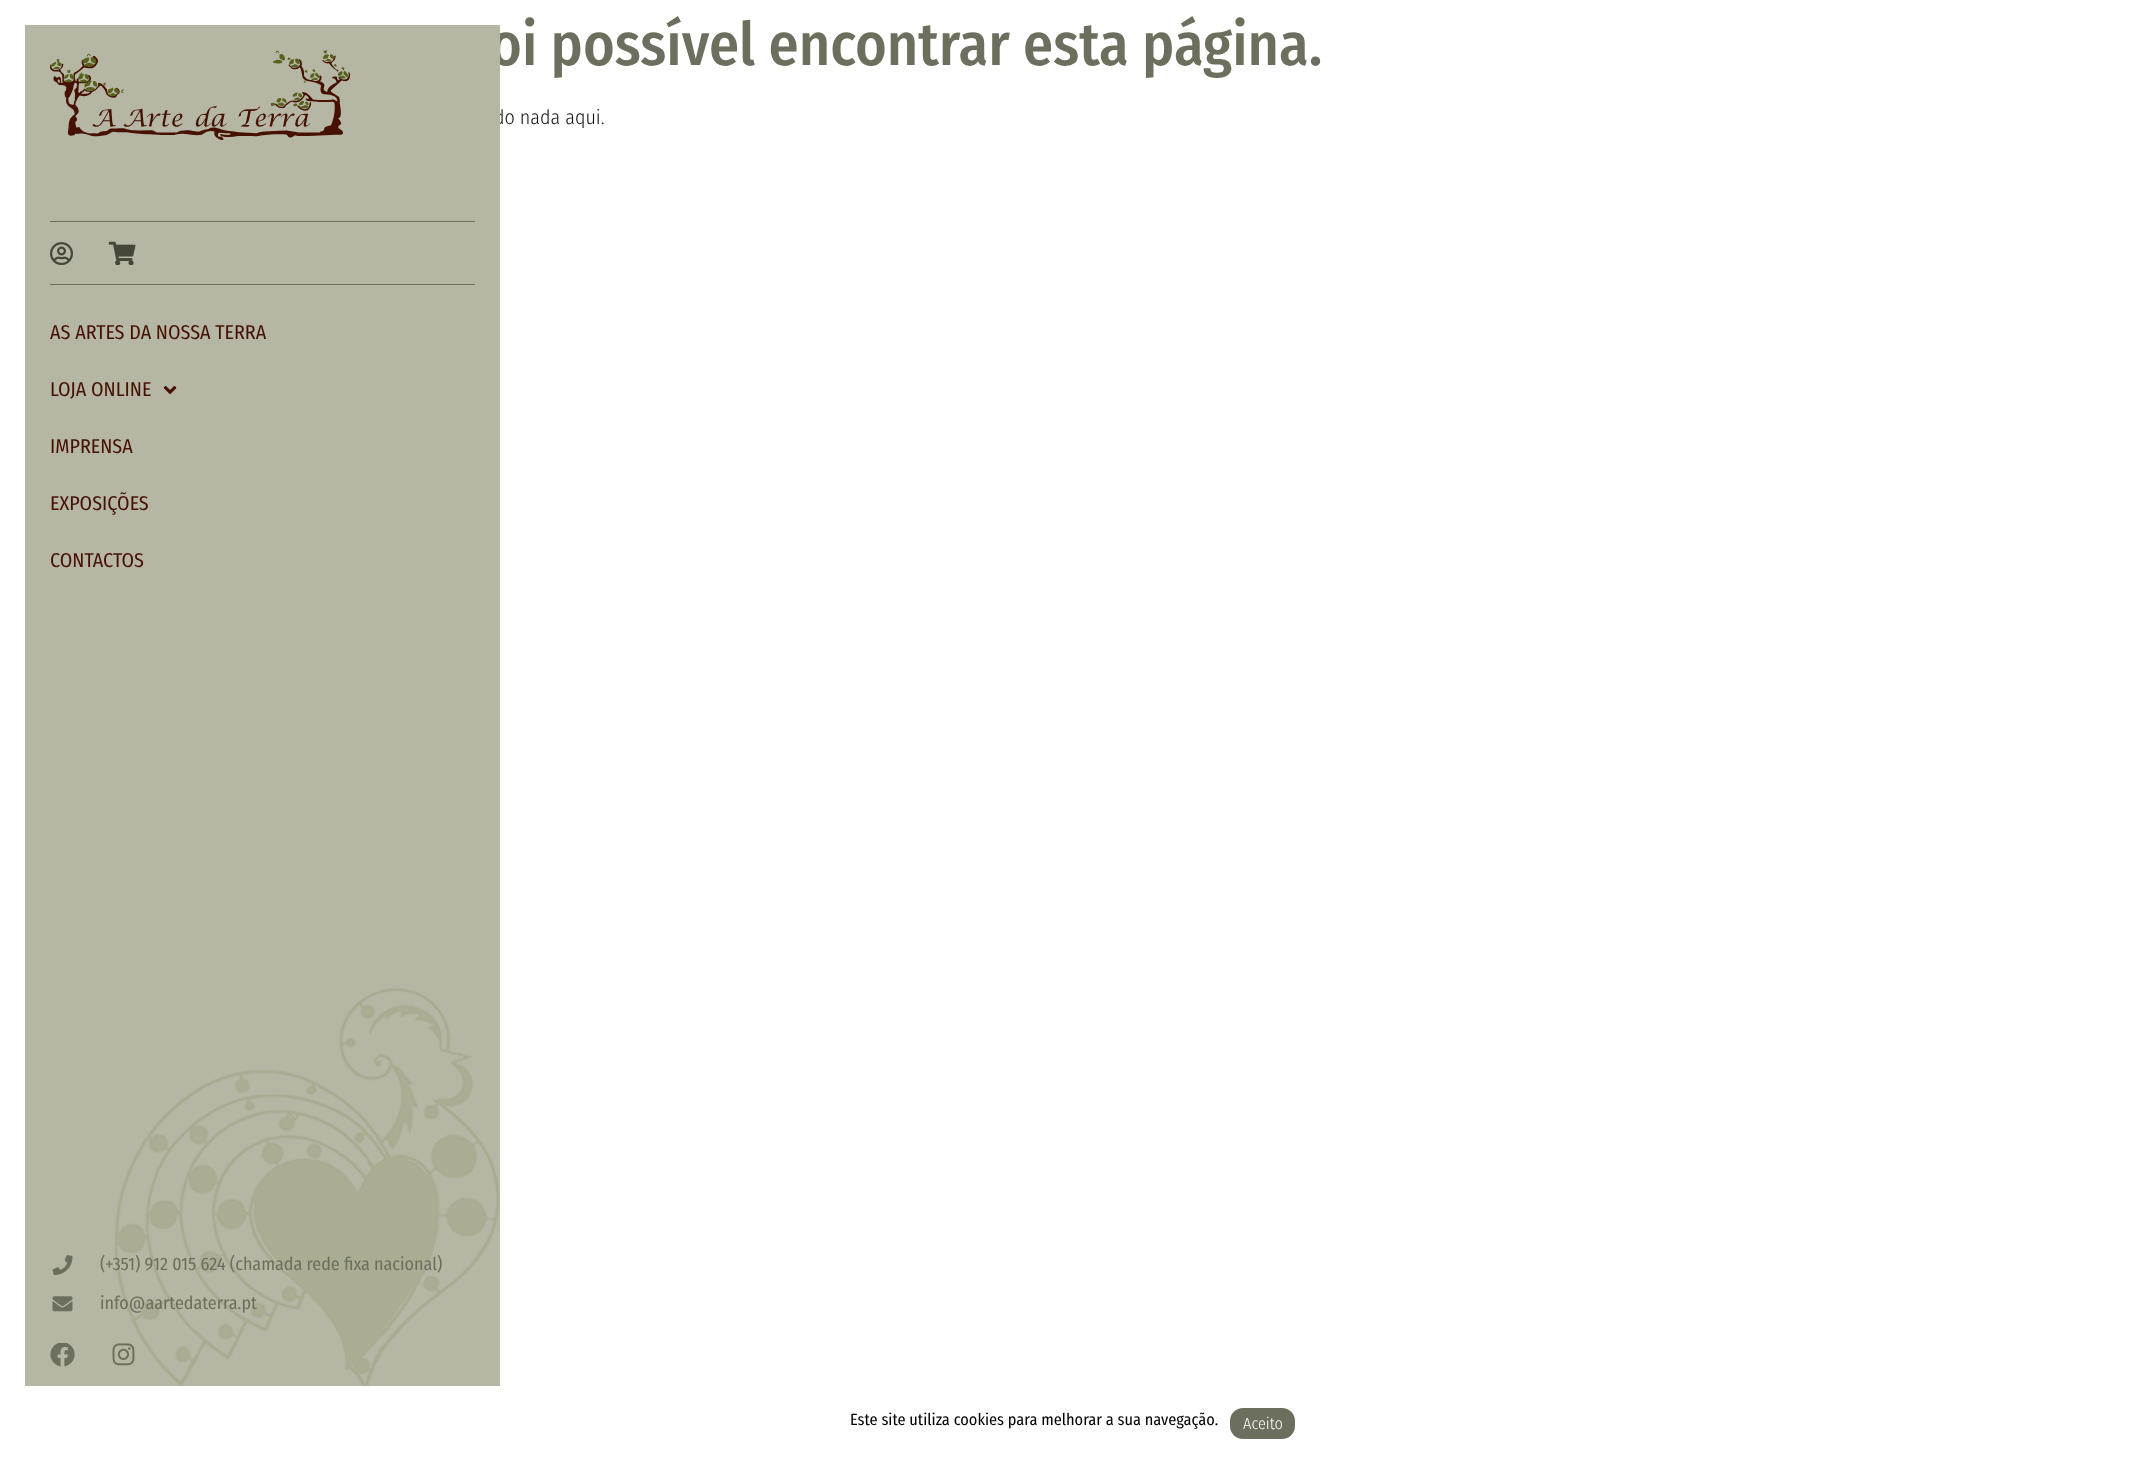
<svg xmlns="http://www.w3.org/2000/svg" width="2144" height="1462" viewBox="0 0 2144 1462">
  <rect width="100%" height="100%" fill="rgb(255,255,255)"/>
  <text x="490" y="65" font-family="Fira Sans Condensed" font-size="60" font-weight="500" fill="rgb(108,111,93)">oi possível encontrar esta página.</text>
  <text x="494" y="124" font-family="Fira Sans Condensed" font-size="20" font-weight="300" fill="rgb(17,17,17)">do nada aqui.</text>
  <rect x="25" y="25" width="475" height="1361" fill="rgb(182,182,164)"/>
  <image x="114" y="988" width="386" height="398" href="pic1.png"/>
  <image x="50" y="50" width="300" height="90" href="pic2.png"/>
  <rect x="50" y="221" width="425" height="1" fill="rgb(108,111,93)"/>
  <image x="50" y="242" width="23" height="23" href="pic3.png"/>
  <image x="108" y="241" width="28" height="24" href="pic4.png"/>
  <rect x="50" y="284" width="425" height="1" fill="rgb(108,111,93)"/>
  <g font-family="Fira Sans Condensed" font-size="20" fill="rgb(70,17,1)">
    <text x="50" y="339">AS ARTES DA NOSSA TERRA</text>
    <text x="50" y="396">LOJA ONLINE</text>
  </g>
  <image x="163" y="386" width="14" height="8" href="pic5.png"/>
  <g font-family="Fira Sans Condensed" font-size="20" fill="rgb(70,17,1)">
    <text x="50" y="453">IMPRENSA</text>
    <text x="50" y="510">EXPOSIÇÕES</text>
    <text x="50" y="567">CONTACTOS</text>
  </g>
  <image x="52" y="1255" width="21" height="20" href="pic6.png"/>
  <text x="100" y="1270" font-family="Fira Sans Condensed" font-size="18" fill="rgb(108,111,93)">(+351) 912 015 624 (chamada rede fixa nacional)</text>
  <image x="52" y="1296" width="21" height="16" href="pic7.png"/>
  <text x="100" y="1309" font-family="Fira Sans Condensed" font-size="18" fill="rgb(108,111,93)">info@aartedaterra.pt</text>
  <image x="50" y="1343" width="25" height="24" href="pic8.png"/>
  <image x="112" y="1343" width="23" height="23" href="pic9.png"/>
  <text x="850" y="1425" font-family="Fira Sans Condensed" font-size="16.25" fill="rgb(0,0,0)">Este site utiliza cookies para melhorar a sua navegação.</text>
  <rect x="1230" y="1408" width="65" height="31" rx="13" fill="rgb(108,111,93)"/>
  <text x="1243" y="1429" font-family="Fira Sans Condensed" font-size="16.25" font-weight="300" fill="rgb(255,255,255)">Aceito</text>
</svg>
